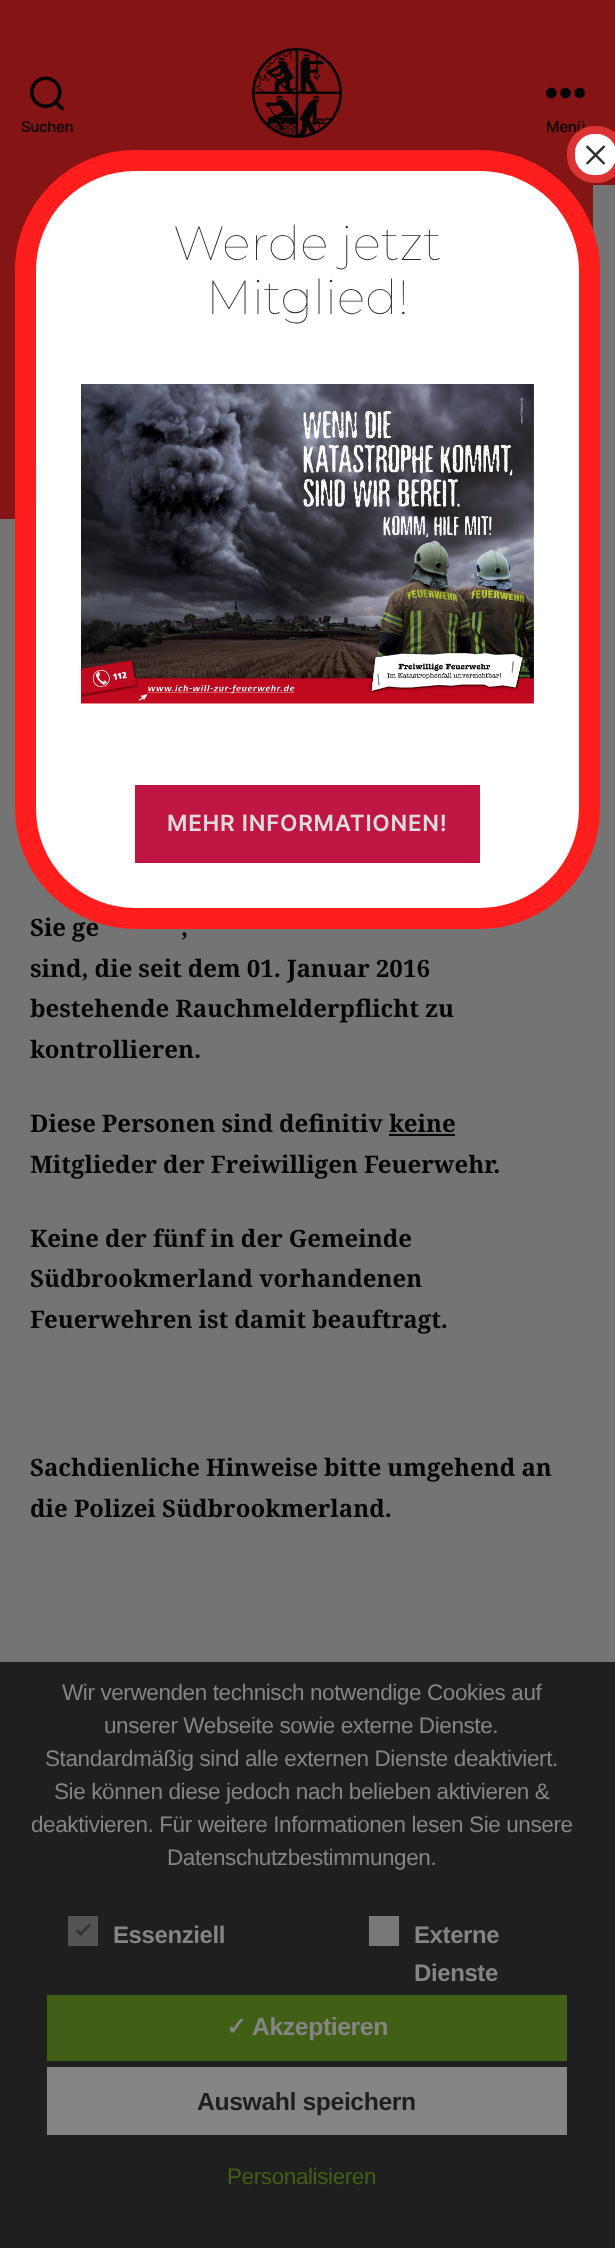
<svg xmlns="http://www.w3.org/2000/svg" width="615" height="2248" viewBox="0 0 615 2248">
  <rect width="100%" height="100%" fill="rgb(116,116,116)"/>
  <rect x="0" y="0" width="615" height="185" fill="rgb(133,20,20)"/>
  <image x="30" y="76" width="35" height="35" href="pic1.png"/>
  <text x="21" y="132" font-family="Inter" font-size="15" font-weight="600" letter-spacing="-0.4" fill="rgb(20,10,10)">Suchen</text>
  <image x="252" y="48" width="90" height="90" href="pic2.png"/>
  <image x="546" y="87" width="39" height="12" href="pic3.png"/>
  <text x="546" y="132" font-family="Inter" font-size="15" font-weight="600" letter-spacing="-0.4" fill="rgb(20,10,10)">Menü</text>
  <rect x="0" y="185" width="593" height="334" fill="rgb(133,20,20)"/>
  <text x="30" y="936" word-spacing="-0.25" font-family="Noto Serif" font-size="24" font-weight="bold" fill="rgb(5,5,5)">Sie ge</text>
  <rect x="25.5" y="160.5" width="564" height="758" rx="109.5" fill="rgb(255,255,255)" stroke="rgb(255,30,30)" stroke-width="21"/>
  <rect x="571" y="130" width="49" height="49" rx="23" fill="rgb(255,255,255)" stroke="rgb(221,51,51)" stroke-width="8"/>
  <text x="582" y="171" font-family="Liberation Serif" font-size="48" fill="rgb(45,45,45)">×</text>
  <g font-family="Montserrat" font-size="48" font-weight="100" fill="rgb(45,45,45)">
    <text x="173" y="260">Werde jetzt</text>
    <text x="206" y="314">Mitglied!</text>
  </g>
  <image x="81" y="384" width="453" height="320" href="pic4.png"/>
  <rect x="135" y="785" width="345" height="78" fill="rgb(191,22,67)"/>
  <text x="167" y="831" font-family="Inter" font-size="22.5" font-weight="600" letter-spacing="0.75" fill="rgb(221,221,221)">MEHR INFORMATIONEN!</text>
  <g font-family="Noto Serif" font-size="24" font-weight="bold" fill="rgb(5,5,5)">
    <text x="181" y="936" word-spacing="-0.25">,</text>
    <text>
      <tspan x="30" y="977" word-spacing="-0.25">sind, die seit dem 01. Januar 2016</tspan>
      <tspan x="30" y="1017">bestehende Rauchmelderpflicht zu</tspan>
      <tspan x="30" y="1058">kontrollieren.</tspan>
    </text>
    <text x="30" y="1132" word-spacing="-0.25">Diese Personen sind definitiv</text>
    <text x="389" y="1132">keine</text>
  </g>
  <rect x="389" y="1134" width="66" height="2" fill="rgb(5,5,5)"/>
  <g font-family="Noto Serif" font-size="24" font-weight="bold" fill="rgb(5,5,5)">
    <text x="30" y="1173" word-spacing="-0.25">Mitglieder der Freiwilligen Feuerwehr.</text>
    <text>
      <tspan x="30" y="1247" word-spacing="-0.25">Keine der fünf in der Gemeinde</tspan>
      <tspan x="30" y="1287">Südbrookmerland vorhandenen</tspan>
      <tspan x="30" y="1328" word-spacing="-0.25">Feuerwehren ist damit beauftragt.</tspan>
    </text>
    <text>
      <tspan x="30" y="1476" word-spacing="-0.25">Sachdienliche Hinweise bitte umgehend an</tspan>
      <tspan x="30" y="1517">die Polizei Südbrookmerland.</tspan>
    </text>
  </g>
  <rect x="0" y="1662" width="615" height="586" fill="rgb(31,31,31)"/>
  <g font-family="Liberation Sans" font-size="22.5" letter-spacing="-0.4" fill="rgb(133,133,133)">
    <text x="62" y="1700">Wir verwenden technisch notwendige Cookies auf</text>
    <text x="104" y="1733">unserer Webseite sowie externe Dienste.</text>
    <text x="45" y="1766">Standardmäßig sind alle externen Dienste deaktiviert.</text>
    <text x="54" y="1799">Sie können diese jedoch nach belieben aktivieren &amp;</text>
    <text x="31" y="1832">deaktivieren. Für weitere Informationen lesen Sie unsere</text>
    <text x="167" y="1865">Datenschutzbestimmungen.</text>
  </g>
  <rect x="68" y="1916" width="30" height="30" fill="rgb(84,84,84)"/>
  <path d="M89 1923.5L91 1925.5L80.5 1936L78.5 1934Z" fill="rgb(52,52,52)"/>
  <path d="M77.5 1929L82.5 1934L80.5 1936L75.5 1931Z" fill="rgb(52,52,52)"/>
  <text x="113" y="1943" font-family="Liberation Sans" font-size="24" font-weight="bold" letter-spacing="-0.4" fill="rgb(133,133,133)">Essenziell</text>
  <rect x="369" y="1916" width="30" height="30" fill="rgb(120,120,120)"/>
  <g font-family="Liberation Sans" font-size="24" font-weight="bold" letter-spacing="-0.4" fill="rgb(133,133,133)">
    <text>
      <tspan x="414" y="1943">Externe</tspan>
      <tspan x="414" y="1981">Dienste</tspan>
    </text>
  </g>
  <rect x="47" y="1995" width="520" height="66" fill="rgb(66,96,21)"/>
  <text x="226" y="2035" font-family="DejaVu Sans" font-size="24.75" font-weight="bold" letter-spacing="-0.4" fill="rgb(133,133,133)">✓</text>
  <text x="252" y="2035" font-family="Liberation Sans" font-size="24.75" font-weight="bold" letter-spacing="-0.4" fill="rgb(133,133,133)">Akzeptieren</text>
  <rect x="47" y="2067" width="520" height="68" fill="rgb(133,133,133)"/>
  <text x="197" y="2110" font-family="Liberation Sans" font-size="24.75" font-weight="bold" letter-spacing="-0.4" fill="rgb(31,31,31)">Auswahl speichern</text>
  <text x="227" y="2184" font-family="Liberation Sans" font-size="22.5" letter-spacing="-0.4" fill="rgb(66,96,21)">Personalisieren</text>
</svg>
